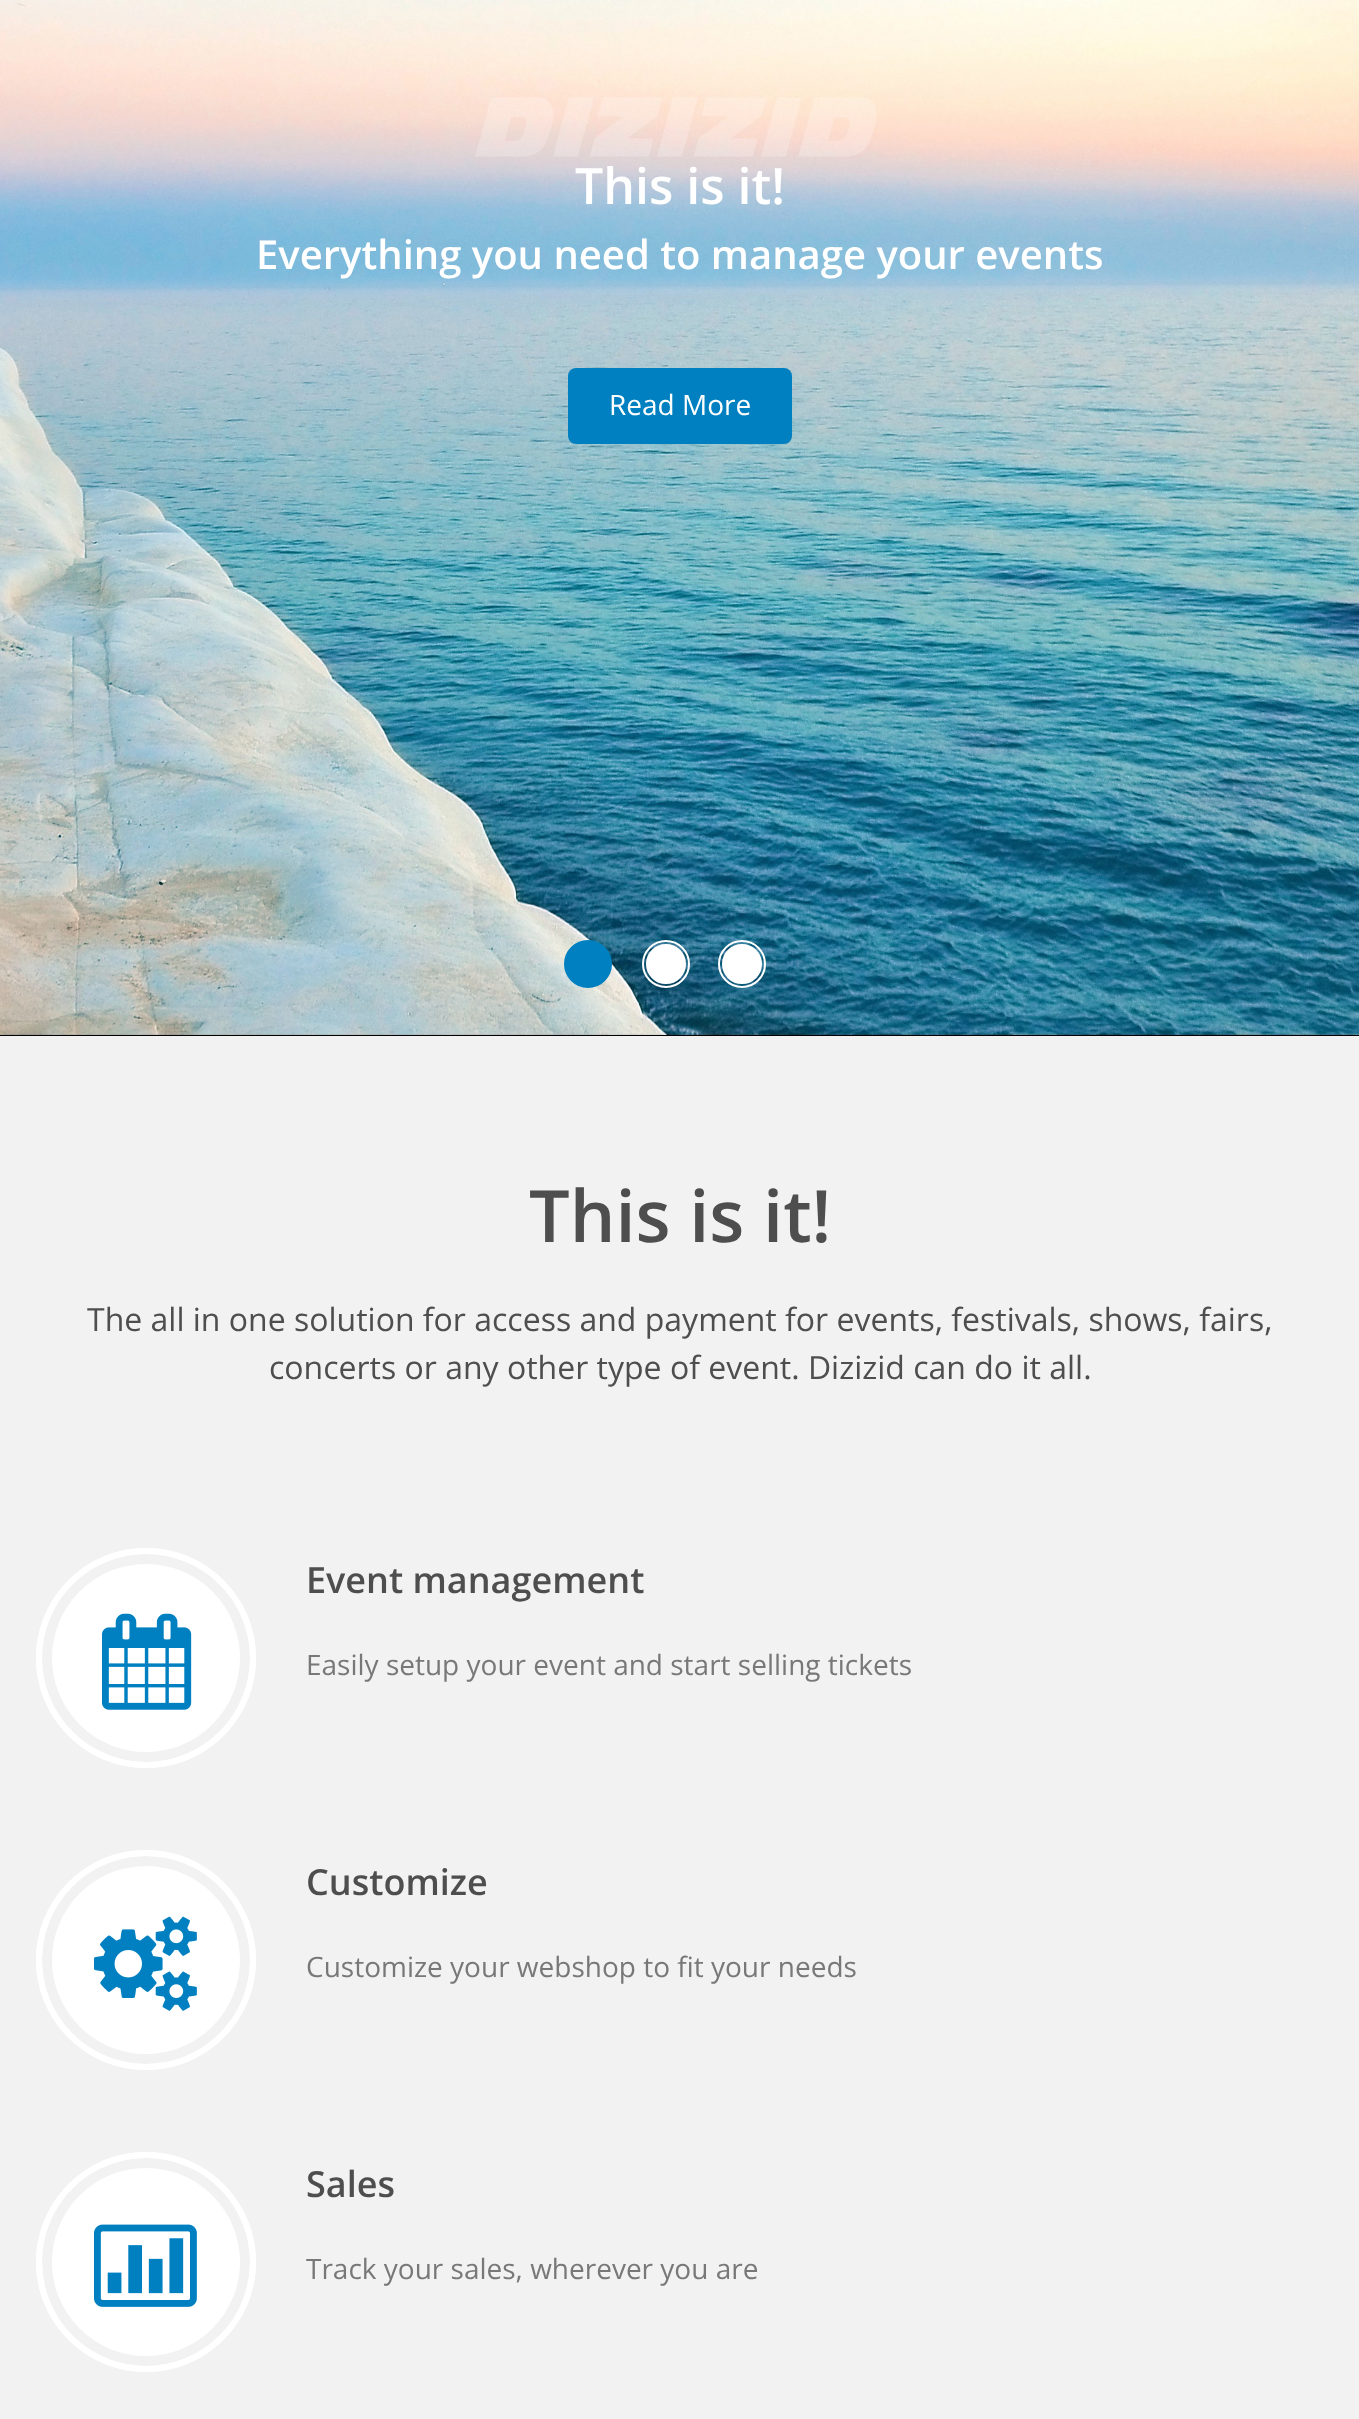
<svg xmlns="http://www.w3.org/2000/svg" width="1359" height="2419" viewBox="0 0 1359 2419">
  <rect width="100%" height="100%" fill="rgb(242,242,242)"/>
  <image x="0" y="0" width="1359" height="1036" href="pic1.png"/>
  <text x="575" y="204" font-family="Open Sans" font-size="50" font-weight="600" fill="rgb(255,255,255)">This is it!</text>
  <text x="256" y="269" font-family="Open Sans" font-size="40" font-weight="600" fill="rgb(255,255,255)">Everything you need to manage your events</text>
  <rect x="568" y="368" width="224" height="76" rx="8" fill="rgb(0,128,192)"/>
  <text x="609" y="415" font-family="Open Sans" font-size="28" fill="rgb(255,255,255)">Read More</text>
  <circle cx="588" cy="964" r="23" fill="rgb(0,128,192)" stroke="rgb(0,128,192)" stroke-width="2"/>
  <circle cx="666" cy="964" r="19" fill="rgb(255,255,255)" stroke="rgb(255,255,255)" stroke-width="2"/>
  <circle cx="666" cy="964" r="23" fill="none" stroke="rgb(255,255,255)" stroke-width="2"/>
  <circle cx="742" cy="964" r="19" fill="rgb(255,255,255)" stroke="rgb(255,255,255)" stroke-width="2"/>
  <circle cx="742" cy="964" r="23" fill="none" stroke="rgb(255,255,255)" stroke-width="2"/>
  <text x="529" y="1242" font-family="Open Sans" font-size="72" font-weight="600" fill="rgb(78,78,78)">This is it!</text>
  <g font-family="Open Sans" font-size="32" fill="rgb(78,78,78)">
    <text x="87" y="1331">The all in one solution for access and payment for events, festivals, shows, fairs,</text>
    <text x="269" y="1379">concerts or any other type of event. Dizizid can do it all.</text>
  </g>
  <circle cx="146" cy="1658" r="110" fill="rgb(255,255,255)"/>
  <circle cx="146" cy="1658" r="99" fill="none" stroke="rgb(242,242,242)" stroke-width="10"/>
  <circle cx="146" cy="1658" r="107" fill="none" stroke="rgb(255,255,255)" stroke-width="6"/>
  <image x="102" y="1613" width="90" height="97" href="pic2.png"/>
  <text x="306" y="1593" font-family="Open Sans" font-size="36" font-weight="600" fill="rgb(78,78,78)">Event management</text>
  <text x="306" y="1675" font-family="Open Sans" font-size="28" fill="rgb(120,120,120)">Easily setup your event and start selling tickets</text>
  <circle cx="146" cy="1960" r="110" fill="rgb(255,255,255)"/>
  <circle cx="146" cy="1960" r="99" fill="none" stroke="rgb(242,242,242)" stroke-width="10"/>
  <circle cx="146" cy="1960" r="107" fill="none" stroke="rgb(255,255,255)" stroke-width="6"/>
  <image x="94" y="1916" width="103" height="95" href="pic3.png"/>
  <text x="306" y="1895" font-family="Open Sans" font-size="36" font-weight="600" fill="rgb(78,78,78)">Customize</text>
  <text x="306" y="1977" font-family="Open Sans" font-size="28" fill="rgb(120,120,120)">Customize your webshop to fit your needs</text>
  <circle cx="146" cy="2262" r="110" fill="rgb(255,255,255)"/>
  <circle cx="146" cy="2262" r="99" fill="none" stroke="rgb(242,242,242)" stroke-width="10"/>
  <circle cx="146" cy="2262" r="107" fill="none" stroke="rgb(255,255,255)" stroke-width="6"/>
  <image x="94" y="2224" width="103" height="83" href="pic4.png"/>
  <text x="306" y="2197" font-family="Open Sans" font-size="36" font-weight="600" fill="rgb(78,78,78)">Sales</text>
  <text x="306" y="2279" font-family="Open Sans" font-size="28" fill="rgb(120,120,120)">Track your sales, wherever you are</text>
</svg>
